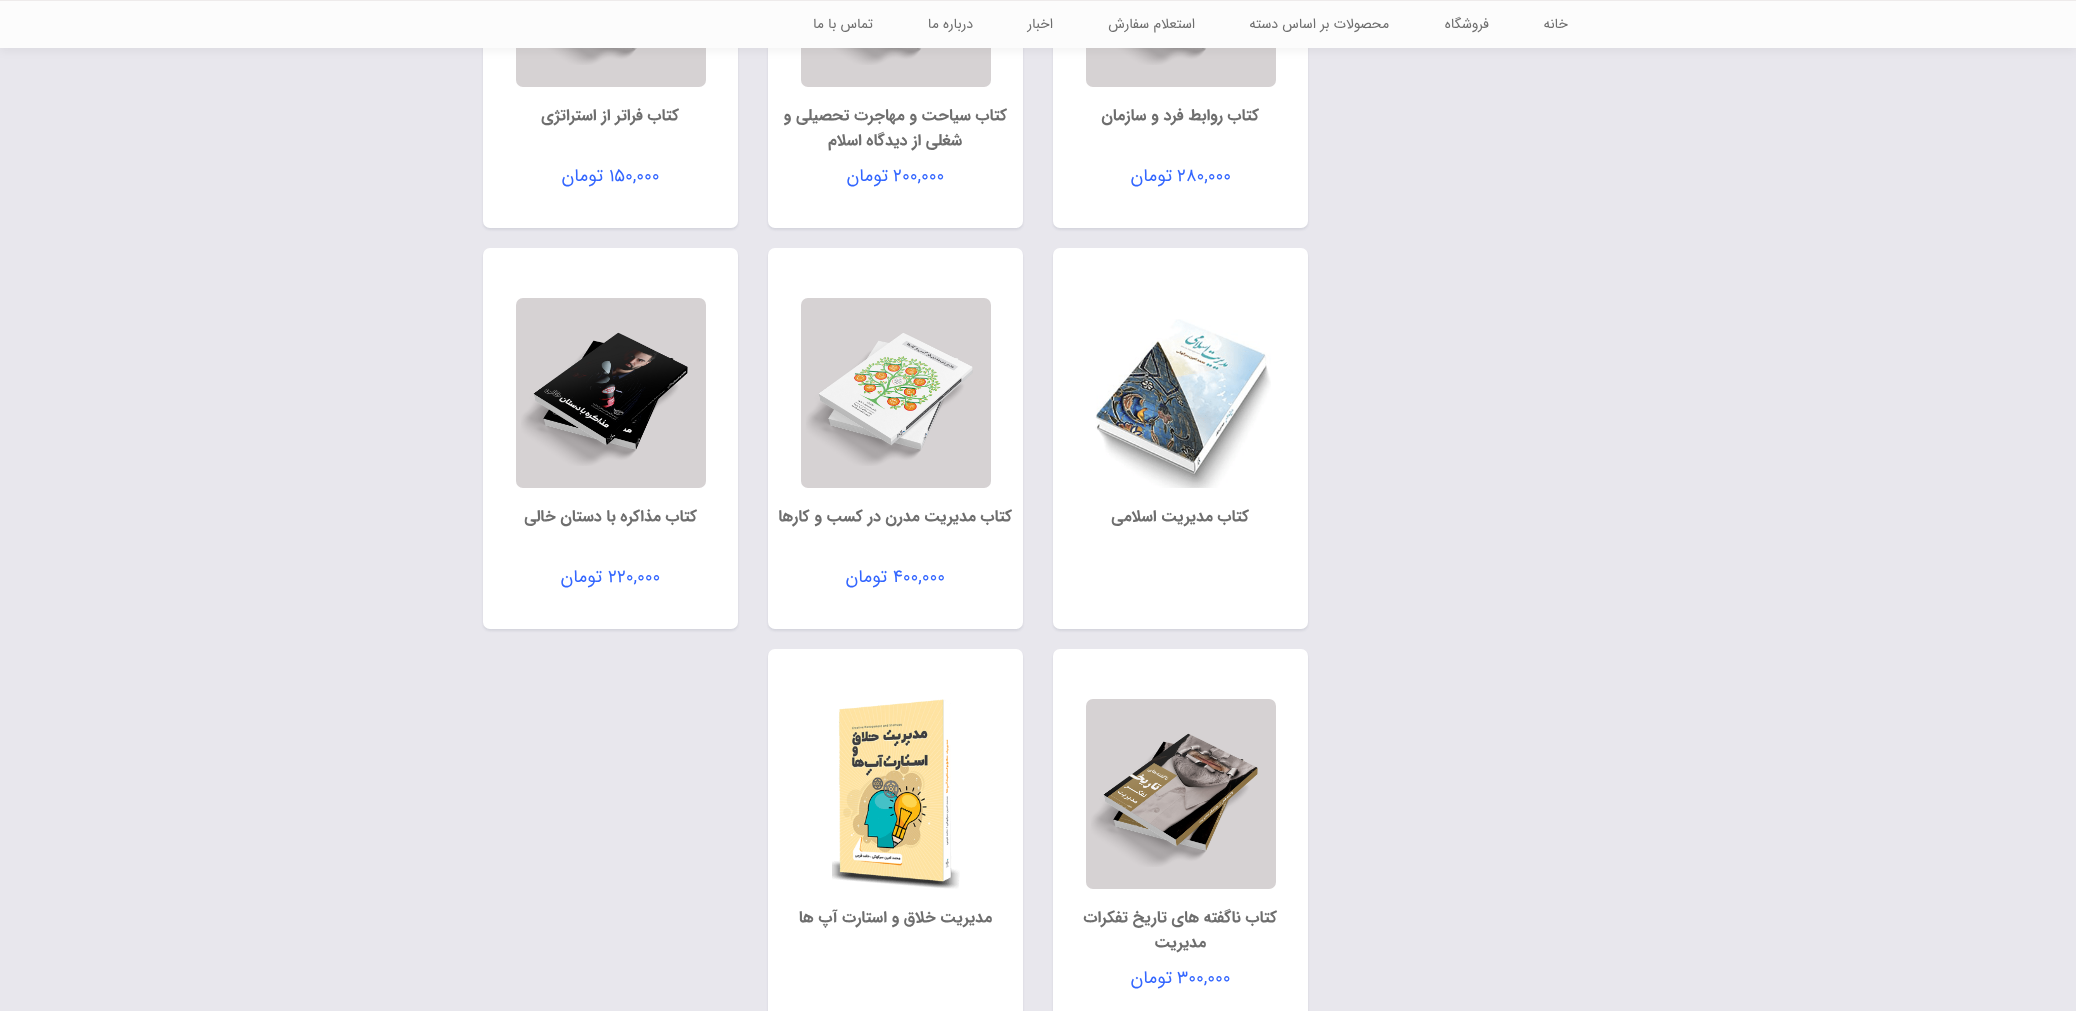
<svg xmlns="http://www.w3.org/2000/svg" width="2076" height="1011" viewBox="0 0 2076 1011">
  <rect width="100%" height="100%" fill="rgb(232,231,237)"/>
  <rect x="1053" y="-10" width="255" height="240" rx="7" fill="rgba(168,172,185,0.3)" filter="blur(1px)"/>
  <rect x="1053" y="-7" width="255" height="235" rx="7" fill="rgb(255,255,255)"/>
  <image x="1086" y="48" width="190" height="39" href="pic1.png"/>
  <rect x="768" y="-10" width="255" height="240" rx="7" fill="rgba(168,172,185,0.3)" filter="blur(1px)"/>
  <rect x="768" y="-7" width="255" height="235" rx="7" fill="rgb(255,255,255)"/>
  <image x="801" y="48" width="190" height="39" href="pic2.png"/>
  <rect x="483" y="-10" width="255" height="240" rx="7" fill="rgba(168,172,185,0.3)" filter="blur(1px)"/>
  <rect x="483" y="-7" width="255" height="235" rx="7" fill="rgb(255,255,255)"/>
  <image x="516" y="48" width="190" height="39" href="pic3.png"/>
  <rect x="0" y="3" width="2076" height="48" fill="rgba(0,0,0,0.05)" filter="blur(5px)"/>
  <rect x="0" y="1" width="2076" height="47" fill="rgb(252,252,252)"/>
  <rect x="0" y="0" width="2076" height="1" fill="rgb(238,235,235)"/>
  <g font-family="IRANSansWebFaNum" font-size="14" direction="rtl" fill="rgb(110,110,110)">
    <text x="1568" y="28">خانه</text>
    <text x="1489" y="28">فروشگاه</text>
    <text x="1389" y="28">محصولات بر اساس دسته</text>
    <text x="1195" y="28">استعلام سفارش</text>
    <text x="1053" y="28">اخبار</text>
    <text x="973" y="28">درباره ما</text>
    <text x="873" y="28">تماس با ما</text>
  </g>
  <text x="1259" y="120" font-family="IRANSansWebFaNum" font-size="16" font-weight="bold" direction="rtl" fill="rgb(110,110,110)">کتاب روابط فرد و سازمان</text>
  <text x="1177" y="181" font-family="IRANSansWebFaNum" font-size="18" fill="rgb(51,102,255)">۲۸۰,۰۰۰</text>
  <text x="1172" y="181" font-family="IRANSansWebFaNum" font-size="18" direction="rtl" fill="rgb(51,102,255)">تومان</text>
  <g font-family="IRANSansWebFaNum" font-size="16" font-weight="bold" direction="rtl" fill="rgb(110,110,110)">
    <text x="1007" y="120">کتاب سیاحت و مهاجرت تحصیلی و</text>
    <text x="962" y="145">شغلی از دیدگاه اسلام</text>
  </g>
  <text x="893" y="181" font-family="IRANSansWebFaNum" font-size="18" fill="rgb(51,102,255)">۲۰۰,۰۰۰</text>
  <text x="888" y="181" font-family="IRANSansWebFaNum" font-size="18" direction="rtl" fill="rgb(51,102,255)">تومان</text>
  <text x="679" y="120" font-family="IRANSansWebFaNum" font-size="16" font-weight="bold" direction="rtl" fill="rgb(110,110,110)">کتاب فراتر از استراتژی</text>
  <text x="609" y="181" font-family="IRANSansWebFaNum" font-size="18" fill="rgb(51,102,255)">۱۵۰,۰۰۰</text>
  <text x="603" y="181" font-family="IRANSansWebFaNum" font-size="18" direction="rtl" fill="rgb(51,102,255)">تومان</text>
  <rect x="1053" y="250" width="255" height="381" rx="7" fill="rgba(168,172,185,0.3)" filter="blur(1px)"/>
  <rect x="1053" y="248" width="255" height="381" rx="7" fill="rgb(255,255,255)"/>
  <image x="1095" y="319" width="176" height="169" href="pic4.png"/>
  <text x="1249" y="521" font-family="IRANSansWebFaNum" font-size="16" font-weight="bold" direction="rtl" fill="rgb(110,110,110)">کتاب مدیریت اسلامی</text>
  <rect x="768" y="250" width="255" height="381" rx="7" fill="rgba(168,172,185,0.3)" filter="blur(1px)"/>
  <rect x="768" y="248" width="255" height="381" rx="7" fill="rgb(255,255,255)"/>
  <image x="801" y="298" width="190" height="190" href="pic5.png"/>
  <text x="1012" y="521" font-family="IRANSansWebFaNum" font-size="16" font-weight="bold" direction="rtl" fill="rgb(110,110,110)">کتاب مدیریت مدرن در کسب و کارها</text>
  <text x="893" y="582" font-family="IRANSansWebFaNum" font-size="18" fill="rgb(51,102,255)">۴۰۰,۰۰۰</text>
  <text x="887" y="582" font-family="IRANSansWebFaNum" font-size="18" direction="rtl" fill="rgb(51,102,255)">تومان</text>
  <rect x="483" y="250" width="255" height="381" rx="7" fill="rgba(168,172,185,0.3)" filter="blur(1px)"/>
  <rect x="483" y="248" width="255" height="381" rx="7" fill="rgb(255,255,255)"/>
  <image x="516" y="298" width="190" height="190" href="pic6.png"/>
  <text x="697" y="521" font-family="IRANSansWebFaNum" font-size="16" font-weight="bold" direction="rtl" fill="rgb(110,110,110)">کتاب مذاکره با دستان خالی</text>
  <text x="608" y="582" font-family="IRANSansWebFaNum" font-size="18" fill="rgb(51,102,255)">۲۲۰,۰۰۰</text>
  <text x="602" y="582" font-family="IRANSansWebFaNum" font-size="18" direction="rtl" fill="rgb(51,102,255)">تومان</text>
  <rect x="1053" y="651" width="255" height="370" rx="7" fill="rgba(168,172,185,0.3)" filter="blur(1px)"/>
  <rect x="1053" y="649" width="255" height="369" rx="7" fill="rgb(255,255,255)"/>
  <image x="1086" y="699" width="190" height="190" href="pic7.png"/>
  <g font-family="IRANSansWebFaNum" font-size="16" font-weight="bold" direction="rtl" fill="rgb(110,110,110)">
    <text x="1277" y="922">کتاب ناگفته های تاریخ تفکرات</text>
    <text x="1206" y="947">مدیریت</text>
  </g>
  <text x="1177" y="983" font-family="IRANSansWebFaNum" font-size="18" fill="rgb(51,102,255)">۳۰۰,۰۰۰</text>
  <text x="1172" y="983" font-family="IRANSansWebFaNum" font-size="18" direction="rtl" fill="rgb(51,102,255)">تومان</text>
  <rect x="768" y="651" width="255" height="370" rx="7" fill="rgba(168,172,185,0.3)" filter="blur(1px)"/>
  <rect x="768" y="649" width="255" height="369" rx="7" fill="rgb(255,255,255)"/>
  <image x="832" y="699" width="128" height="190" href="pic8.png"/>
  <text x="992" y="922" font-family="IRANSansWebFaNum" font-size="16" font-weight="bold" direction="rtl" fill="rgb(110,110,110)">مدیریت خلاق و استارت آپ ها</text>
</svg>
